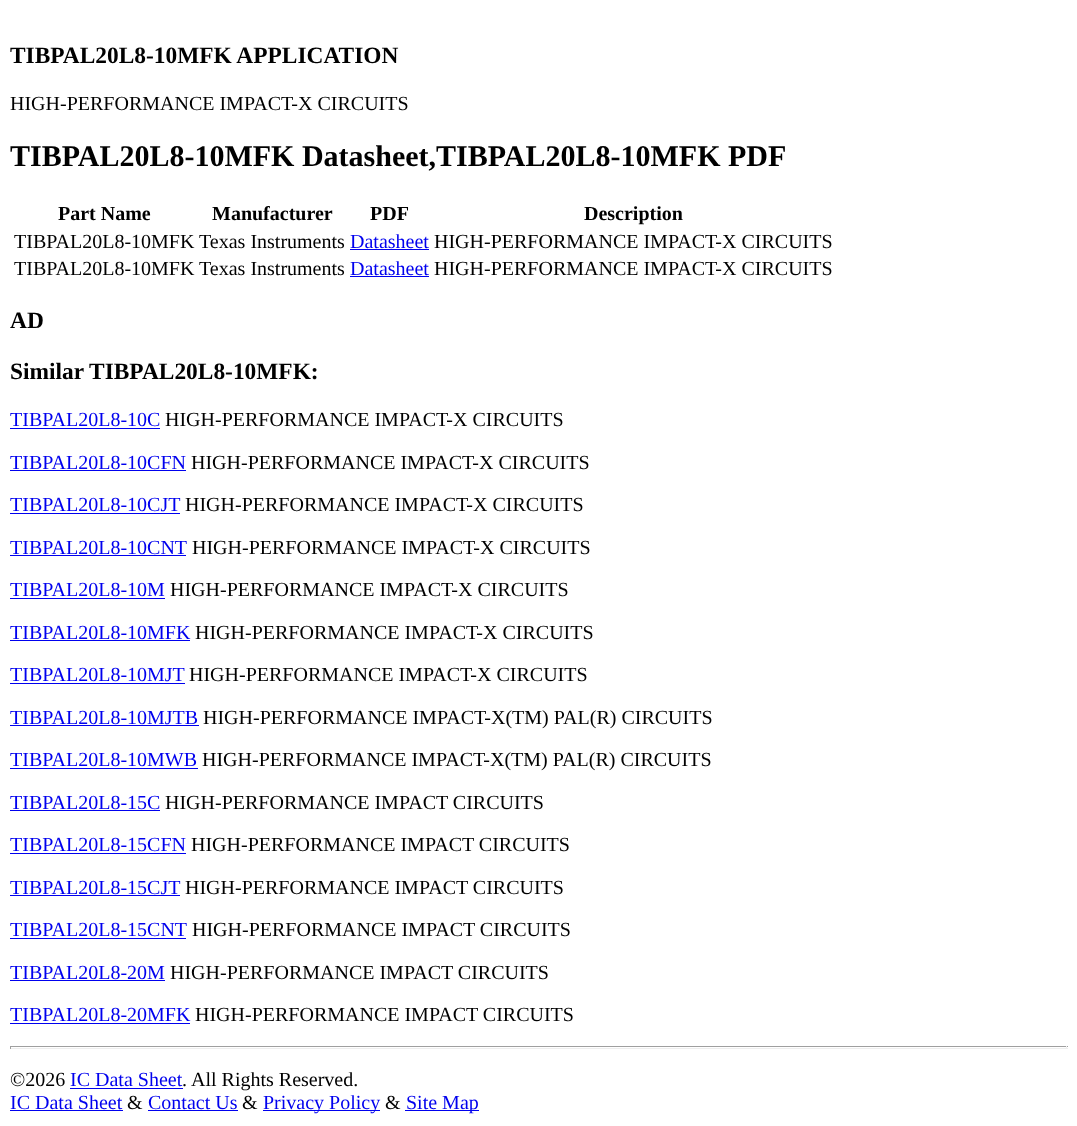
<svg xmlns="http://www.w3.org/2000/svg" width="1077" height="1126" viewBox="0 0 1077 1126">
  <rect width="100%" height="100%" fill="rgb(255,255,255)"/>
  <text x="10" y="63" font-family="Liberation Serif" font-size="23.4" font-weight="bold" fill="rgb(0,0,0)">TIBPAL20L8-10MFK APPLICATION</text>
  <text x="10" y="110" font-family="Liberation Serif" font-size="20" fill="rgb(0,0,0)">HIGH-PERFORMANCE IMPACT-X CIRCUITS</text>
  <text x="10" y="166" font-family="Liberation Serif" font-size="30" font-weight="bold" fill="rgb(0,0,0)">TIBPAL20L8-10MFK Datasheet,TIBPAL20L8-10MFK PDF</text>
  <g font-family="Liberation Serif" font-size="20" font-weight="bold" fill="rgb(0,0,0)">
    <text x="58" y="220">Part Name</text>
    <text x="212" y="220">Manufacturer</text>
    <text x="370" y="220">PDF</text>
    <text x="584" y="220">Description</text>
  </g>
  <text x="14" y="248" font-family="Liberation Serif" font-size="20" fill="rgb(0,0,0)">TIBPAL20L8-10MFK Texas Instruments</text>
  <text x="350" y="248" font-family="Liberation Serif" font-size="20" fill="rgb(0,0,238)">Datasheet</text>
  <rect x="350" y="249" width="79" height="1" fill="rgb(0,0,238)"/>
  <g font-family="Liberation Serif" font-size="20" fill="rgb(0,0,0)">
    <text x="434" y="248">HIGH-PERFORMANCE IMPACT-X CIRCUITS</text>
    <text x="14" y="275">TIBPAL20L8-10MFK Texas Instruments</text>
  </g>
  <text x="350" y="275" font-family="Liberation Serif" font-size="20" fill="rgb(0,0,238)">Datasheet</text>
  <rect x="350" y="276" width="79" height="1" fill="rgb(0,0,238)"/>
  <text x="434" y="275" font-family="Liberation Serif" font-size="20" fill="rgb(0,0,0)">HIGH-PERFORMANCE IMPACT-X CIRCUITS</text>
  <g font-family="Liberation Serif" font-size="23.4" font-weight="bold" fill="rgb(0,0,0)">
    <text x="10" y="328">AD</text>
    <text x="10" y="379">Similar TIBPAL20L8-10MFK:</text>
  </g>
  <text x="10" y="426" font-family="Liberation Serif" font-size="20" fill="rgb(0,0,238)">TIBPAL20L8-10C</text>
  <rect x="10" y="428" width="150" height="1" fill="rgb(0,0,238)"/>
  <text x="165" y="426" font-family="Liberation Serif" font-size="20" fill="rgb(0,0,0)">HIGH-PERFORMANCE IMPACT-X CIRCUITS</text>
  <text x="10" y="469" font-family="Liberation Serif" font-size="20" fill="rgb(0,0,238)">TIBPAL20L8-10CFN</text>
  <rect x="10" y="470" width="176" height="1" fill="rgb(0,0,238)"/>
  <text x="191" y="469" font-family="Liberation Serif" font-size="20" fill="rgb(0,0,0)">HIGH-PERFORMANCE IMPACT-X CIRCUITS</text>
  <text x="10" y="511" font-family="Liberation Serif" font-size="20" fill="rgb(0,0,238)">TIBPAL20L8-10CJT</text>
  <rect x="10" y="513" width="170" height="1" fill="rgb(0,0,238)"/>
  <text x="185" y="511" font-family="Liberation Serif" font-size="20" fill="rgb(0,0,0)">HIGH-PERFORMANCE IMPACT-X CIRCUITS</text>
  <text x="10" y="554" font-family="Liberation Serif" font-size="20" fill="rgb(0,0,238)">TIBPAL20L8-10CNT</text>
  <rect x="10" y="555" width="176" height="1" fill="rgb(0,0,238)"/>
  <text x="192" y="554" font-family="Liberation Serif" font-size="20" fill="rgb(0,0,0)">HIGH-PERFORMANCE IMPACT-X CIRCUITS</text>
  <text x="10" y="596" font-family="Liberation Serif" font-size="20" fill="rgb(0,0,238)">TIBPAL20L8-10M</text>
  <rect x="10" y="598" width="155" height="1" fill="rgb(0,0,238)"/>
  <text x="170" y="596" font-family="Liberation Serif" font-size="20" fill="rgb(0,0,0)">HIGH-PERFORMANCE IMPACT-X CIRCUITS</text>
  <text x="10" y="639" font-family="Liberation Serif" font-size="20" fill="rgb(0,0,238)">TIBPAL20L8-10MFK</text>
  <rect x="10" y="640" width="180" height="1" fill="rgb(0,0,238)"/>
  <text x="195" y="639" font-family="Liberation Serif" font-size="20" fill="rgb(0,0,0)">HIGH-PERFORMANCE IMPACT-X CIRCUITS</text>
  <text x="10" y="681" font-family="Liberation Serif" font-size="20" fill="rgb(0,0,238)">TIBPAL20L8-10MJT</text>
  <rect x="10" y="683" width="175" height="1" fill="rgb(0,0,238)"/>
  <text x="189" y="681" font-family="Liberation Serif" font-size="20" fill="rgb(0,0,0)">HIGH-PERFORMANCE IMPACT-X CIRCUITS</text>
  <text x="10" y="724" font-family="Liberation Serif" font-size="20" fill="rgb(0,0,238)">TIBPAL20L8-10MJTB</text>
  <rect x="10" y="725" width="189" height="1" fill="rgb(0,0,238)"/>
  <text x="203" y="724" font-family="Liberation Serif" font-size="20" fill="rgb(0,0,0)">HIGH-PERFORMANCE IMPACT-X(TM) PAL(R) CIRCUITS</text>
  <text x="10" y="766" font-family="Liberation Serif" font-size="20" fill="rgb(0,0,238)">TIBPAL20L8-10MWB</text>
  <rect x="10" y="768" width="188" height="1" fill="rgb(0,0,238)"/>
  <text x="202" y="766" font-family="Liberation Serif" font-size="20" fill="rgb(0,0,0)">HIGH-PERFORMANCE IMPACT-X(TM) PAL(R) CIRCUITS</text>
  <text x="10" y="809" font-family="Liberation Serif" font-size="20" fill="rgb(0,0,238)">TIBPAL20L8-15C</text>
  <rect x="10" y="810" width="150" height="1" fill="rgb(0,0,238)"/>
  <text x="165" y="809" font-family="Liberation Serif" font-size="20" fill="rgb(0,0,0)">HIGH-PERFORMANCE IMPACT CIRCUITS</text>
  <text x="10" y="851" font-family="Liberation Serif" font-size="20" fill="rgb(0,0,238)">TIBPAL20L8-15CFN</text>
  <rect x="10" y="853" width="176" height="1" fill="rgb(0,0,238)"/>
  <text x="191" y="851" font-family="Liberation Serif" font-size="20" fill="rgb(0,0,0)">HIGH-PERFORMANCE IMPACT CIRCUITS</text>
  <text x="10" y="894" font-family="Liberation Serif" font-size="20" fill="rgb(0,0,238)">TIBPAL20L8-15CJT</text>
  <rect x="10" y="895" width="170" height="1" fill="rgb(0,0,238)"/>
  <text x="185" y="894" font-family="Liberation Serif" font-size="20" fill="rgb(0,0,0)">HIGH-PERFORMANCE IMPACT CIRCUITS</text>
  <text x="10" y="936" font-family="Liberation Serif" font-size="20" fill="rgb(0,0,238)">TIBPAL20L8-15CNT</text>
  <rect x="10" y="938" width="176" height="1" fill="rgb(0,0,238)"/>
  <text x="192" y="936" font-family="Liberation Serif" font-size="20" fill="rgb(0,0,0)">HIGH-PERFORMANCE IMPACT CIRCUITS</text>
  <text x="10" y="979" font-family="Liberation Serif" font-size="20" fill="rgb(0,0,238)">TIBPAL20L8-20M</text>
  <rect x="10" y="980" width="155" height="1" fill="rgb(0,0,238)"/>
  <text x="170" y="979" font-family="Liberation Serif" font-size="20" fill="rgb(0,0,0)">HIGH-PERFORMANCE IMPACT CIRCUITS</text>
  <text x="10" y="1021" font-family="Liberation Serif" font-size="20" fill="rgb(0,0,238)">TIBPAL20L8-20MFK</text>
  <rect x="10" y="1023" width="180" height="1" fill="rgb(0,0,238)"/>
  <text x="195" y="1021" font-family="Liberation Serif" font-size="20" fill="rgb(0,0,0)">HIGH-PERFORMANCE IMPACT CIRCUITS</text>
  <rect x="10" y="1046" width="1058" height="1" fill="rgb(159,159,159)"/>
  <rect x="1066" y="1046" width="1" height="3" fill="rgb(238,238,238)"/>
  <rect x="10" y="1048" width="1058" height="1" fill="rgb(238,238,238)"/>
  <rect x="10" y="1046" width="1" height="3" fill="rgb(159,159,159)"/>
  <text x="10" y="1086" font-family="Liberation Serif" font-size="20" fill="rgb(0,0,0)">©2026</text>
  <text x="70" y="1086" font-family="Liberation Serif" font-size="20" fill="rgb(0,0,238)">IC Data Sheet</text>
  <rect x="70" y="1088" width="113" height="1" fill="rgb(0,0,238)"/>
  <g font-family="Liberation Serif" font-size="20" fill="rgb(0,0,0)">
    <text x="182" y="1086">.</text>
    <text x="191" y="1086">All Rights Reserved.</text>
  </g>
  <text x="10" y="1109" font-family="Liberation Serif" font-size="20" fill="rgb(0,0,238)">IC Data Sheet</text>
  <rect x="10" y="1110" width="113" height="1" fill="rgb(0,0,238)"/>
  <text x="127" y="1109" font-family="Liberation Serif" font-size="20" fill="rgb(0,0,0)">&amp;</text>
  <text x="148" y="1109" font-family="Liberation Serif" font-size="20" fill="rgb(0,0,238)">Contact Us</text>
  <rect x="148" y="1110" width="90" height="1" fill="rgb(0,0,238)"/>
  <text x="242" y="1109" font-family="Liberation Serif" font-size="20" fill="rgb(0,0,0)">&amp;</text>
  <rect x="263" y="1110" width="117" height="1" fill="rgb(0,0,238)"/>
  <text x="263" y="1109" font-family="Liberation Serif" font-size="20" fill="rgb(0,0,238)">Privacy Policy</text>
  <text x="385" y="1109" font-family="Liberation Serif" font-size="20" fill="rgb(0,0,0)">&amp;</text>
  <rect x="405" y="1110" width="74" height="1" fill="rgb(0,0,238)"/>
  <text x="406" y="1109" font-family="Liberation Serif" font-size="20" fill="rgb(0,0,238)">Site Map</text>
</svg>
